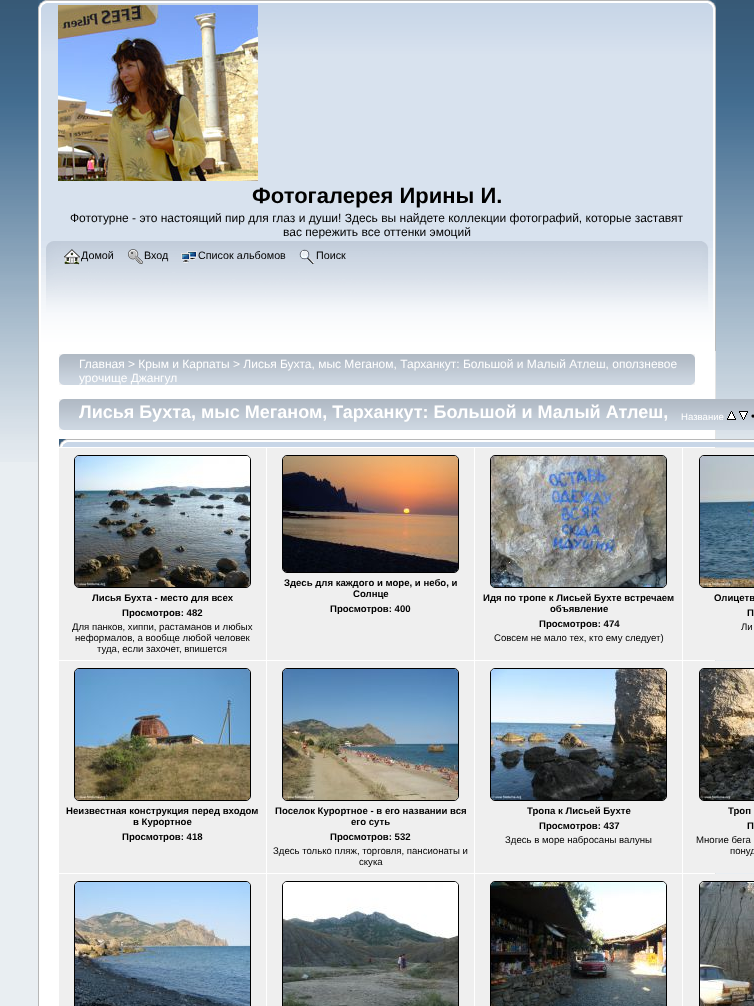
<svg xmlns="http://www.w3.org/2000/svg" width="754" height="1006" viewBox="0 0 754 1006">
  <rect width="100%" height="100%" fill="rgb(233,238,242)"/>
  <image x="0" y="0" width="754" height="462" href="pic1.png"/>
  <image x="38" y="0" width="670" height="241" href="pic2.png"/>
  <image x="708" y="0" width="8" height="241" href="pic3.png"/>
  <image x="58" y="5" width="200" height="176" href="pic4.png"/>
  <text x="252" y="203" font-family="Liberation Sans" font-size="22" font-weight="bold" fill="rgb(0,0,0)">Фотогалерея Ирины И.</text>
  <g font-family="Liberation Sans" font-size="12" fill="rgb(0,0,0)">
    <text x="70" y="222">Фототурне - это настоящий пир для глаз и души! Здесь вы найдете коллекции фотографий, которые заставят</text>
    <text x="283" y="236">вас пережить все оттенки эмоций</text>
  </g>
  <image x="38" y="241" width="664" height="110" href="pic5.png"/>
  <image x="702" y="241" width="14" height="110" href="pic6.png"/>
  <image x="64" y="249" width="16" height="16" href="pic7.png"/>
  <text x="81" y="259" font-family="Liberation Sans" font-size="10.75" fill="rgb(0,0,0)">Домой</text>
  <image x="128" y="249" width="15" height="15" href="pic8.png"/>
  <text x="144" y="259" font-family="Liberation Sans" font-size="10.75" fill="rgb(0,0,0)">Вход</text>
  <image x="181" y="251" width="16" height="12" href="pic9.png"/>
  <text x="198" y="259" font-family="Liberation Sans" font-size="10.75" fill="rgb(0,0,0)">Список альбомов</text>
  <image x="299" y="249" width="16" height="15" href="pic10.png"/>
  <text x="316" y="259" font-family="Liberation Sans" font-size="10.75" fill="rgb(0,0,0)">Поиск</text>
  <rect x="39" y="351" width="676" height="655" fill="rgb(255,255,255)"/>
  <rect x="38" y="351" width="1" height="655" fill="rgb(183,183,183)"/>
  <rect x="715" y="351" width="1" height="523" fill="rgb(228,228,228)"/>
  <image x="59" y="354" width="632" height="31" href="pic11.png"/>
  <image x="691" y="354" width="4" height="31" href="pic12.png"/>
  <g font-family="Liberation Sans" font-size="12" fill="rgb(255,255,255)">
    <text>
      <tspan x="79" y="368">Главная &gt; Крым и Карпаты &gt; Лисья Бухта, мыс Меганом, Тарханкут: Большой и Малый Атлеш, оползневое</tspan>
      <tspan x="79" y="382">урочище Джангул</tspan>
    </text>
  </g>
  <image x="59" y="399" width="695" height="48" href="pic13.png"/>
  <text x="79" y="418" font-family="Liberation Sans" font-size="18" font-weight="bold" fill="rgb(255,255,255)">Лисья Бухта, мыс Меганом, Тарханкут: Большой и Малый Атлеш,</text>
  <text x="681" y="420" font-family="Liberation Sans" font-size="9.6" fill="rgb(255,255,255)">Название</text>
  <image x="727" y="411" width="9" height="9" href="pic14.png"/>
  <image x="739" y="411" width="9" height="9" href="pic15.png"/>
  <text x="751" y="420" font-family="Liberation Sans" font-size="12" fill="rgb(0,0,0)">•</text>
  <rect x="59" y="448" width="207" height="212" fill="rgb(239,239,239)"/>
  <rect x="74.5" y="455.5" width="176" height="132" rx="4.5" fill="none" stroke="rgb(0,0,0)"/>
  <image x="75" y="456" width="175" height="131" href="pic16.png"/>
  <g font-family="Liberation Sans" font-size="9.6" font-weight="bold" fill="rgb(0,0,0)">
    <text x="92" y="601">Лисья Бухта - место для всех</text>
    <text x="122" y="616">Просмотров: 482</text>
  </g>
  <g font-family="Liberation Sans" font-size="9.6" fill="rgb(0,0,0)">
    <text x="72" y="630">Для панков, хиппи, растаманов и любых</text>
    <text x="75" y="641">неформалов, а вообще любой человек</text>
    <text x="97" y="652">туда, если захочет, впишется</text>
  </g>
  <rect x="267" y="448" width="207" height="212" fill="rgb(239,239,239)"/>
  <rect x="282.5" y="455.5" width="176" height="117" rx="4.5" fill="none" stroke="rgb(0,0,0)"/>
  <image x="283" y="456" width="175" height="116" href="pic17.png"/>
  <g font-family="Liberation Sans" font-size="9.6" font-weight="bold" fill="rgb(0,0,0)">
    <text x="284" y="586">Здесь для каждого и море, и небо, и</text>
    <text x="353" y="597">Солнце</text>
    <text x="330" y="612">Просмотров: 400</text>
  </g>
  <rect x="475" y="448" width="207" height="212" fill="rgb(239,239,239)"/>
  <rect x="490.5" y="455.5" width="176" height="132" rx="4.5" fill="none" stroke="rgb(0,0,0)"/>
  <image x="491" y="456" width="175" height="131" href="pic18.png"/>
  <g font-family="Liberation Sans" font-size="9.6" font-weight="bold" fill="rgb(0,0,0)">
    <text x="483" y="601">Идя по тропе к Лисьей Бухте встречаем</text>
    <text x="550" y="612">объявление</text>
    <text x="539" y="627">Просмотров: 474</text>
  </g>
  <text x="494" y="641" font-family="Liberation Sans" font-size="9.6" fill="rgb(0,0,0)">Совсем не мало тех, кто ему следует)</text>
  <rect x="683" y="448" width="71" height="212" fill="rgb(239,239,239)"/>
  <rect x="699.5" y="455.5" width="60" height="132" rx="4.5" fill="none" stroke="rgb(0,0,0)"/>
  <image x="700" y="456" width="54" height="131" href="pic19.png"/>
  <g font-family="Liberation Sans" font-size="9.6" font-weight="bold" fill="rgb(0,0,0)">
    <text x="714" y="601">Олицетв</text>
    <text x="747" y="616">П</text>
  </g>
  <text x="741" y="630" font-family="Liberation Sans" font-size="9.6" fill="rgb(0,0,0)">Ли</text>
  <rect x="59" y="661" width="207" height="212" fill="rgb(239,239,239)"/>
  <rect x="74.5" y="668.5" width="176" height="132" rx="4.5" fill="none" stroke="rgb(0,0,0)"/>
  <image x="75" y="669" width="175" height="131" href="pic20.png"/>
  <g font-family="Liberation Sans" font-size="9.6" font-weight="bold" fill="rgb(0,0,0)">
    <text x="66" y="814">Неизвестная конструкция перед входом</text>
    <text x="133" y="825">в Курортное</text>
    <text x="122" y="840">Просмотров: 418</text>
  </g>
  <rect x="267" y="661" width="207" height="212" fill="rgb(239,239,239)"/>
  <rect x="282.5" y="668.5" width="176" height="132" rx="4.5" fill="none" stroke="rgb(0,0,0)"/>
  <image x="283" y="669" width="175" height="131" href="pic21.png"/>
  <g font-family="Liberation Sans" font-size="9.6" font-weight="bold" fill="rgb(0,0,0)">
    <text x="275" y="814">Поселок Курортное - в его названии вся</text>
    <text x="351" y="825">его суть</text>
    <text x="330" y="840">Просмотров: 532</text>
  </g>
  <g font-family="Liberation Sans" font-size="9.6" fill="rgb(0,0,0)">
    <text x="273" y="854">Здесь только пляж, торговля, пансионаты и</text>
    <text x="359" y="865">скука</text>
  </g>
  <rect x="475" y="661" width="207" height="212" fill="rgb(239,239,239)"/>
  <rect x="490.5" y="668.5" width="176" height="132" rx="4.5" fill="none" stroke="rgb(0,0,0)"/>
  <image x="491" y="669" width="175" height="131" href="pic22.png"/>
  <g font-family="Liberation Sans" font-size="9.6" font-weight="bold" fill="rgb(0,0,0)">
    <text x="527" y="814">Тропа к Лисьей Бухте</text>
    <text x="539" y="829">Просмотров: 437</text>
  </g>
  <text x="505" y="843" font-family="Liberation Sans" font-size="9.6" fill="rgb(0,0,0)">Здесь в море набросаны валуны</text>
  <rect x="683" y="661" width="71" height="212" fill="rgb(239,239,239)"/>
  <rect x="699.5" y="668.5" width="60" height="132" rx="4.5" fill="none" stroke="rgb(0,0,0)"/>
  <image x="700" y="669" width="54" height="131" href="pic23.png"/>
  <g font-family="Liberation Sans" font-size="9.6" font-weight="bold" fill="rgb(0,0,0)">
    <text x="728" y="814">Троп</text>
    <text x="747" y="829">П</text>
  </g>
  <g font-family="Liberation Sans" font-size="9.6" fill="rgb(0,0,0)">
    <text x="696" y="843">Многие бега</text>
    <text x="730" y="854">понуд</text>
  </g>
  <rect x="59" y="874" width="207" height="132" fill="rgb(239,239,239)"/>
  <rect x="74.5" y="881.5" width="176" height="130" rx="4.5" fill="none" stroke="rgb(0,0,0)"/>
  <image x="75" y="882" width="175" height="124" href="pic24.png"/>
  <rect x="267" y="874" width="207" height="132" fill="rgb(239,239,239)"/>
  <rect x="282.5" y="881.5" width="176" height="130" rx="4.5" fill="none" stroke="rgb(0,0,0)"/>
  <image x="283" y="882" width="175" height="124" href="pic25.png"/>
  <rect x="475" y="874" width="207" height="132" fill="rgb(239,239,239)"/>
  <rect x="490.5" y="881.5" width="176" height="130" rx="4.5" fill="none" stroke="rgb(0,0,0)"/>
  <image x="491" y="882" width="175" height="124" href="pic26.png"/>
  <rect x="683" y="874" width="71" height="132" fill="rgb(239,239,239)"/>
  <rect x="699.5" y="881.5" width="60" height="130" rx="4.5" fill="none" stroke="rgb(0,0,0)"/>
  <image x="700" y="882" width="54" height="124" href="pic27.png"/>
</svg>
